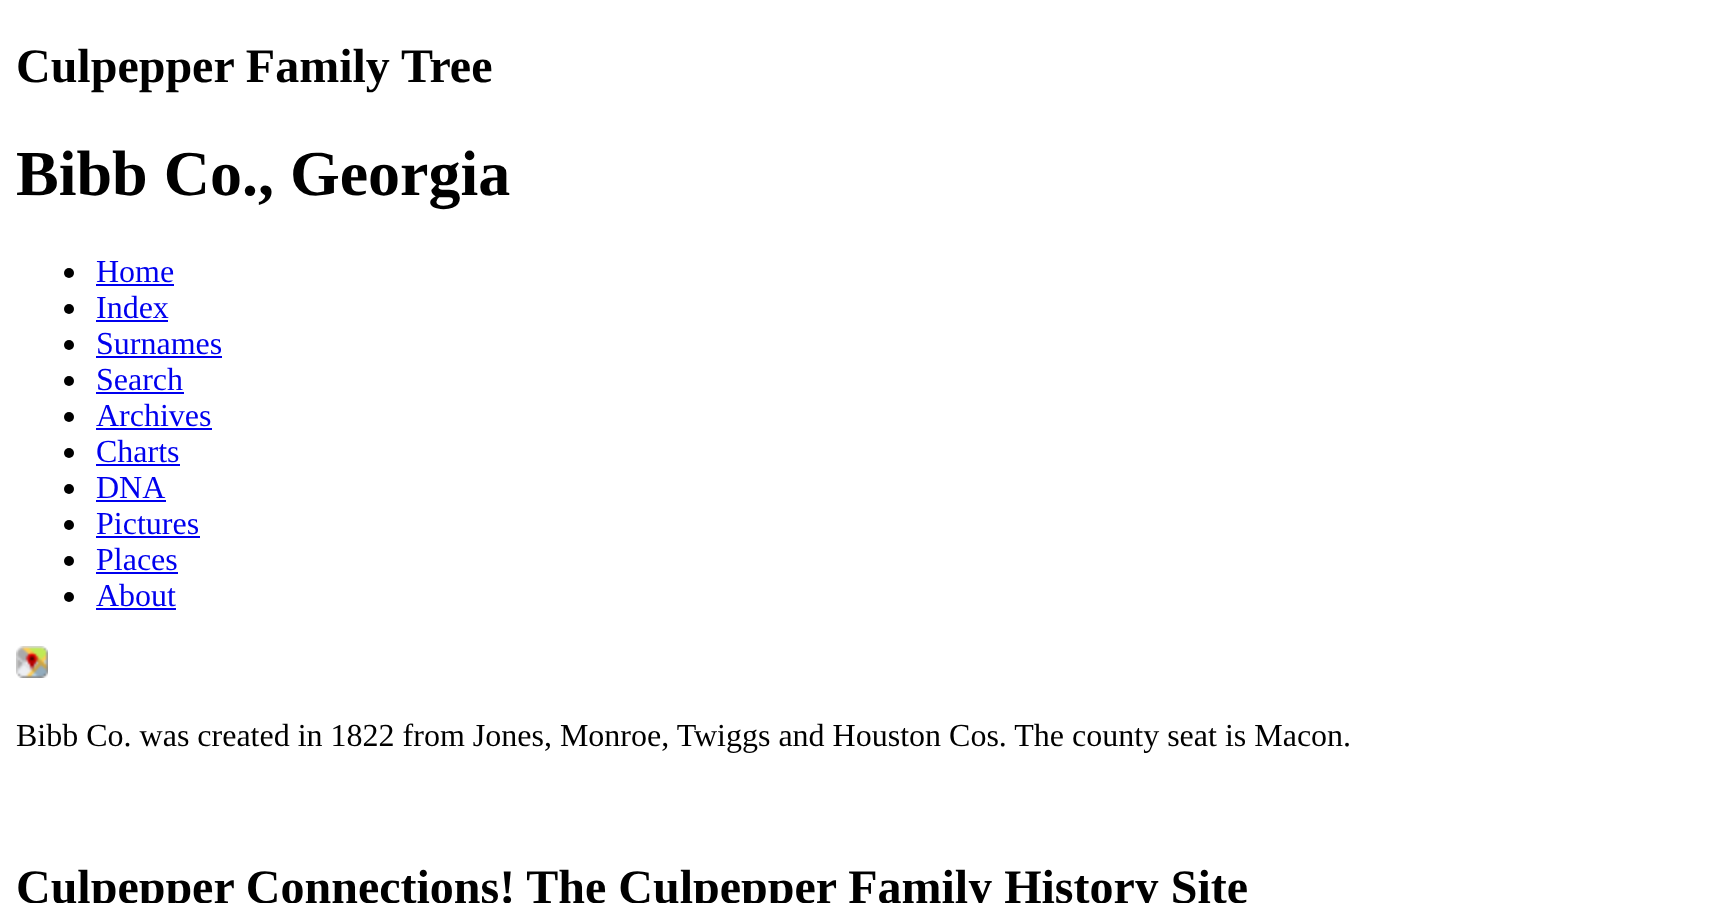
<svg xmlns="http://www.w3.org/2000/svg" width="1730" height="903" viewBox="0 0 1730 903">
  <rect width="100%" height="100%" fill="rgb(255,255,255)"/>
  <text x="16" y="82" font-family="Liberation Serif" font-size="48" font-weight="bold" fill="rgb(0,0,0)">Culpepper Family Tree</text>
  <text x="16" y="195" font-family="Liberation Serif" font-size="64" font-weight="bold" fill="rgb(0,0,0)">Bibb Co., Georgia</text>
  <circle cx="69" cy="273" r="5" fill="rgb(0,0,0)"/>
  <text x="96" y="282" font-family="Liberation Serif" font-size="32" fill="rgb(0,0,238)">Home</text>
  <rect x="96" y="284" width="78" height="2" fill="rgb(0,0,238)"/>
  <circle cx="69" cy="309" r="5" fill="rgb(0,0,0)"/>
  <text x="96" y="318" font-family="Liberation Serif" font-size="32" fill="rgb(0,0,238)">Index</text>
  <rect x="96" y="320" width="72" height="2" fill="rgb(0,0,238)"/>
  <circle cx="69" cy="345" r="5" fill="rgb(0,0,0)"/>
  <text x="96" y="354" font-family="Liberation Serif" font-size="32" fill="rgb(0,0,238)">Surnames</text>
  <rect x="96" y="356" width="126" height="2" fill="rgb(0,0,238)"/>
  <circle cx="69" cy="381" r="5" fill="rgb(0,0,0)"/>
  <text x="96" y="390" font-family="Liberation Serif" font-size="32" fill="rgb(0,0,238)">Search</text>
  <rect x="96" y="392" width="88" height="2" fill="rgb(0,0,238)"/>
  <circle cx="69" cy="417" r="5" fill="rgb(0,0,0)"/>
  <text x="96" y="426" font-family="Liberation Serif" font-size="32" fill="rgb(0,0,238)">Archives</text>
  <rect x="96" y="428" width="116" height="2" fill="rgb(0,0,238)"/>
  <circle cx="69" cy="453" r="5" fill="rgb(0,0,0)"/>
  <text x="96" y="462" font-family="Liberation Serif" font-size="32" fill="rgb(0,0,238)">Charts</text>
  <rect x="96" y="464" width="84" height="2" fill="rgb(0,0,238)"/>
  <circle cx="69" cy="489" r="5" fill="rgb(0,0,0)"/>
  <text x="96" y="498" font-family="Liberation Serif" font-size="32" fill="rgb(0,0,238)">DNA</text>
  <rect x="96" y="500" width="70" height="2" fill="rgb(0,0,238)"/>
  <circle cx="69" cy="525" r="5" fill="rgb(0,0,0)"/>
  <text x="96" y="534" font-family="Liberation Serif" font-size="32" fill="rgb(0,0,238)">Pictures</text>
  <rect x="96" y="536" width="104" height="2" fill="rgb(0,0,238)"/>
  <circle cx="69" cy="561" r="5" fill="rgb(0,0,0)"/>
  <text x="96" y="570" font-family="Liberation Serif" font-size="32" fill="rgb(0,0,238)">Places</text>
  <rect x="96" y="572" width="82" height="2" fill="rgb(0,0,238)"/>
  <circle cx="69" cy="597" r="5" fill="rgb(0,0,0)"/>
  <text x="96" y="606" font-family="Liberation Serif" font-size="32" fill="rgb(0,0,238)">About</text>
  <rect x="96" y="608" width="80" height="2" fill="rgb(0,0,238)"/>
  <image x="16" y="646" width="32" height="32" href="pic1.png"/>
  <text x="16" y="746" font-family="Liberation Serif" font-size="32" fill="rgb(0,0,0)">Bibb Co. was created in 1822 from Jones, Monroe, Twiggs and Houston Cos. The county seat is Macon.</text>
  <text x="16" y="903" font-family="Liberation Serif" font-size="48" font-weight="bold" fill="rgb(0,0,0)">Culpepper Connections! The Culpepper Family History Site</text>
</svg>
